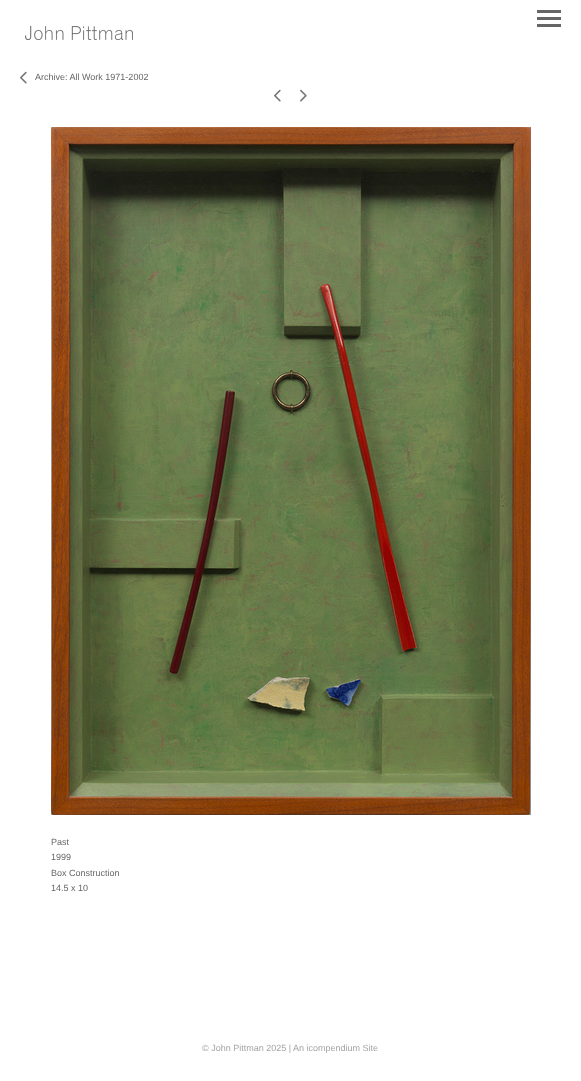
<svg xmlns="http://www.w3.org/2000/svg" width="581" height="1081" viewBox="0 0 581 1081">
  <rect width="100%" height="100%" fill="rgb(255,255,255)"/>
  <rect x="537" y="10" width="24" height="3" fill="rgb(102,102,102)"/>
  <rect x="537" y="17" width="24" height="3" fill="rgb(102,102,102)"/>
  <rect x="537" y="24" width="24" height="3" fill="rgb(102,102,102)"/>
  <image x="25" y="26" width="108" height="14" href="pic1.png"/>
  <image x="20" y="71" width="7" height="13" href="pic2.png"/>
  <text x="35" y="80" font-family="Liberation Sans" font-size="9" fill="rgb(102,102,102)">Archive: All Work 1971-2002</text>
  <image x="274" y="89" width="7" height="13" href="pic2.png"/>
  <image x="300" y="89" width="7" height="13" href="pic3.png"/>
  <image x="51" y="127" width="480" height="688" href="pic4.png"/>
  <g font-family="Liberation Sans" font-size="9" fill="rgb(102,102,102)">
    <text>
      <tspan x="51" y="845">Past</tspan>
      <tspan x="51" y="860">1999</tspan>
      <tspan x="51" y="876">Box Construction</tspan>
      <tspan x="51" y="891">14.5 x 10</tspan>
    </text>
  </g>
  <text x="202" y="1051" font-family="Liberation Sans" font-size="9" fill="rgb(164,164,164)">© John Pittman 2025 | An icompendium Site</text>
</svg>
